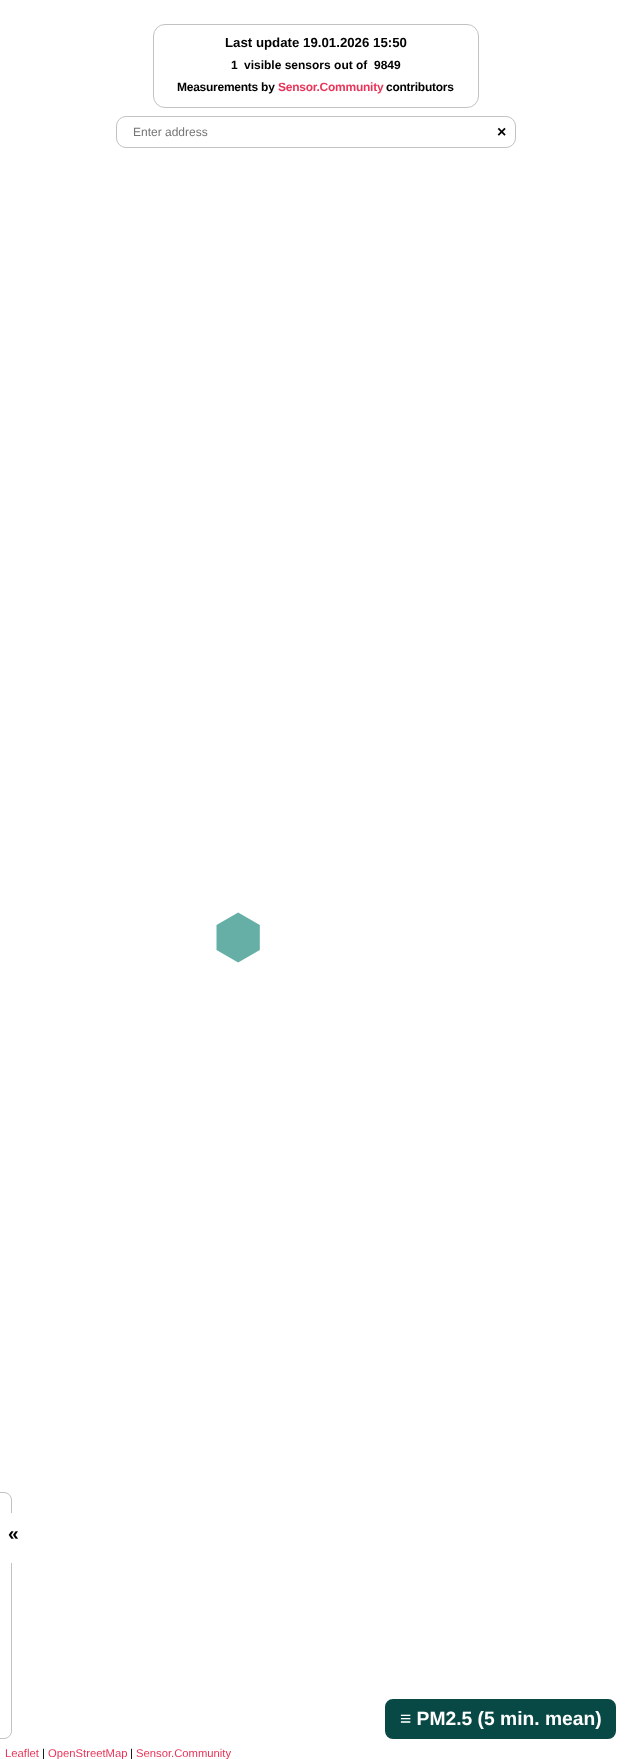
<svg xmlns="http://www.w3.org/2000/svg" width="631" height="1759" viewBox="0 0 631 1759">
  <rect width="100%" height="100%" fill="rgb(255,255,255)"/>
  <rect x="153.5" y="24.5" width="325" height="83" rx="11.5" fill="none" stroke="rgb(194,194,194)"/>
  <text x="225" y="47" font-family="Liberation Sans" font-size="13.25" font-weight="bold" fill="rgb(0,0,0)">Last update 19.01.2026 15:50</text>
  <g font-family="Liberation Sans" font-size="12" font-weight="bold" fill="rgb(0,0,0)">
    <text x="231" y="69">1</text>
    <text x="244" y="69">visible sensors out of</text>
    <text x="374" y="69">9849</text>
  </g>
  <text x="177" y="91" font-family="Liberation Sans" font-size="12" font-weight="bold" letter-spacing="-0.25" fill="rgb(0,0,0)">Measurements by</text>
  <text x="278" y="91" font-family="Liberation Sans" font-size="12" font-weight="bold" letter-spacing="-0.25" fill="rgb(232,53,89)">Sensor.Community</text>
  <text x="386" y="91" font-family="Liberation Sans" font-size="12" font-weight="bold" letter-spacing="-0.25" fill="rgb(0,0,0)">contributors</text>
  <rect x="116.5" y="116.5" width="399" height="31" rx="9.5" fill="none" stroke="rgb(194,194,194)"/>
  <path d="M125 117H503C505 117 507 119 507 121V143C507 145 505 147 503 147H125Z" fill="rgb(255,255,255)"/>
  <text x="133" y="136" font-family="Liberation Sans" font-size="12" fill="rgb(117,117,117)">Enter address</text>
  <text x="497" y="137" font-family="Liberation Sans" font-size="16" font-weight="bold" fill="rgb(0,0,0)">×</text>
  <text x="5" y="1757" font-family="Liberation Sans" font-size="11.25" fill="rgb(232,53,89)">Leaflet</text>
  <text x="42" y="1757" font-family="Liberation Sans" font-size="11.25" fill="rgb(0,0,0)">|</text>
  <text x="48" y="1757" font-family="Liberation Sans" font-size="11.25" fill="rgb(232,53,89)">OpenStreetMap</text>
  <text x="130" y="1757" font-family="Liberation Sans" font-size="11.25" fill="rgb(0,0,0)">|</text>
  <text x="136" y="1757" font-family="Liberation Sans" font-size="11.25" fill="rgb(232,53,89)">Sensor.Community</text>
  <image x="216" y="912" width="44" height="51" href="pic1.png"/>
  <rect x="-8.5" y="1492.5" width="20" height="246" rx="7.5" fill="none" stroke="rgb(194,194,194)"/>
  <rect x="-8" y="1513" width="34" height="50" rx="8" fill="rgb(255,255,255)"/>
  <text x="8" y="1540" font-family="Liberation Sans" font-size="19.25" font-weight="bold" fill="rgb(0,0,0)">«</text>
  <rect x="386.5" y="1700.5" width="228" height="37" rx="6.5" fill="rgb(8,73,69)" stroke="rgb(8,73,69)" stroke-width="3"/>
  <text x="400" y="1725" font-family="Liberation Sans" font-size="19.25" font-weight="bold" fill="rgb(255,255,255)">≡ PM2.5 (5 min. mean)</text>
</svg>
